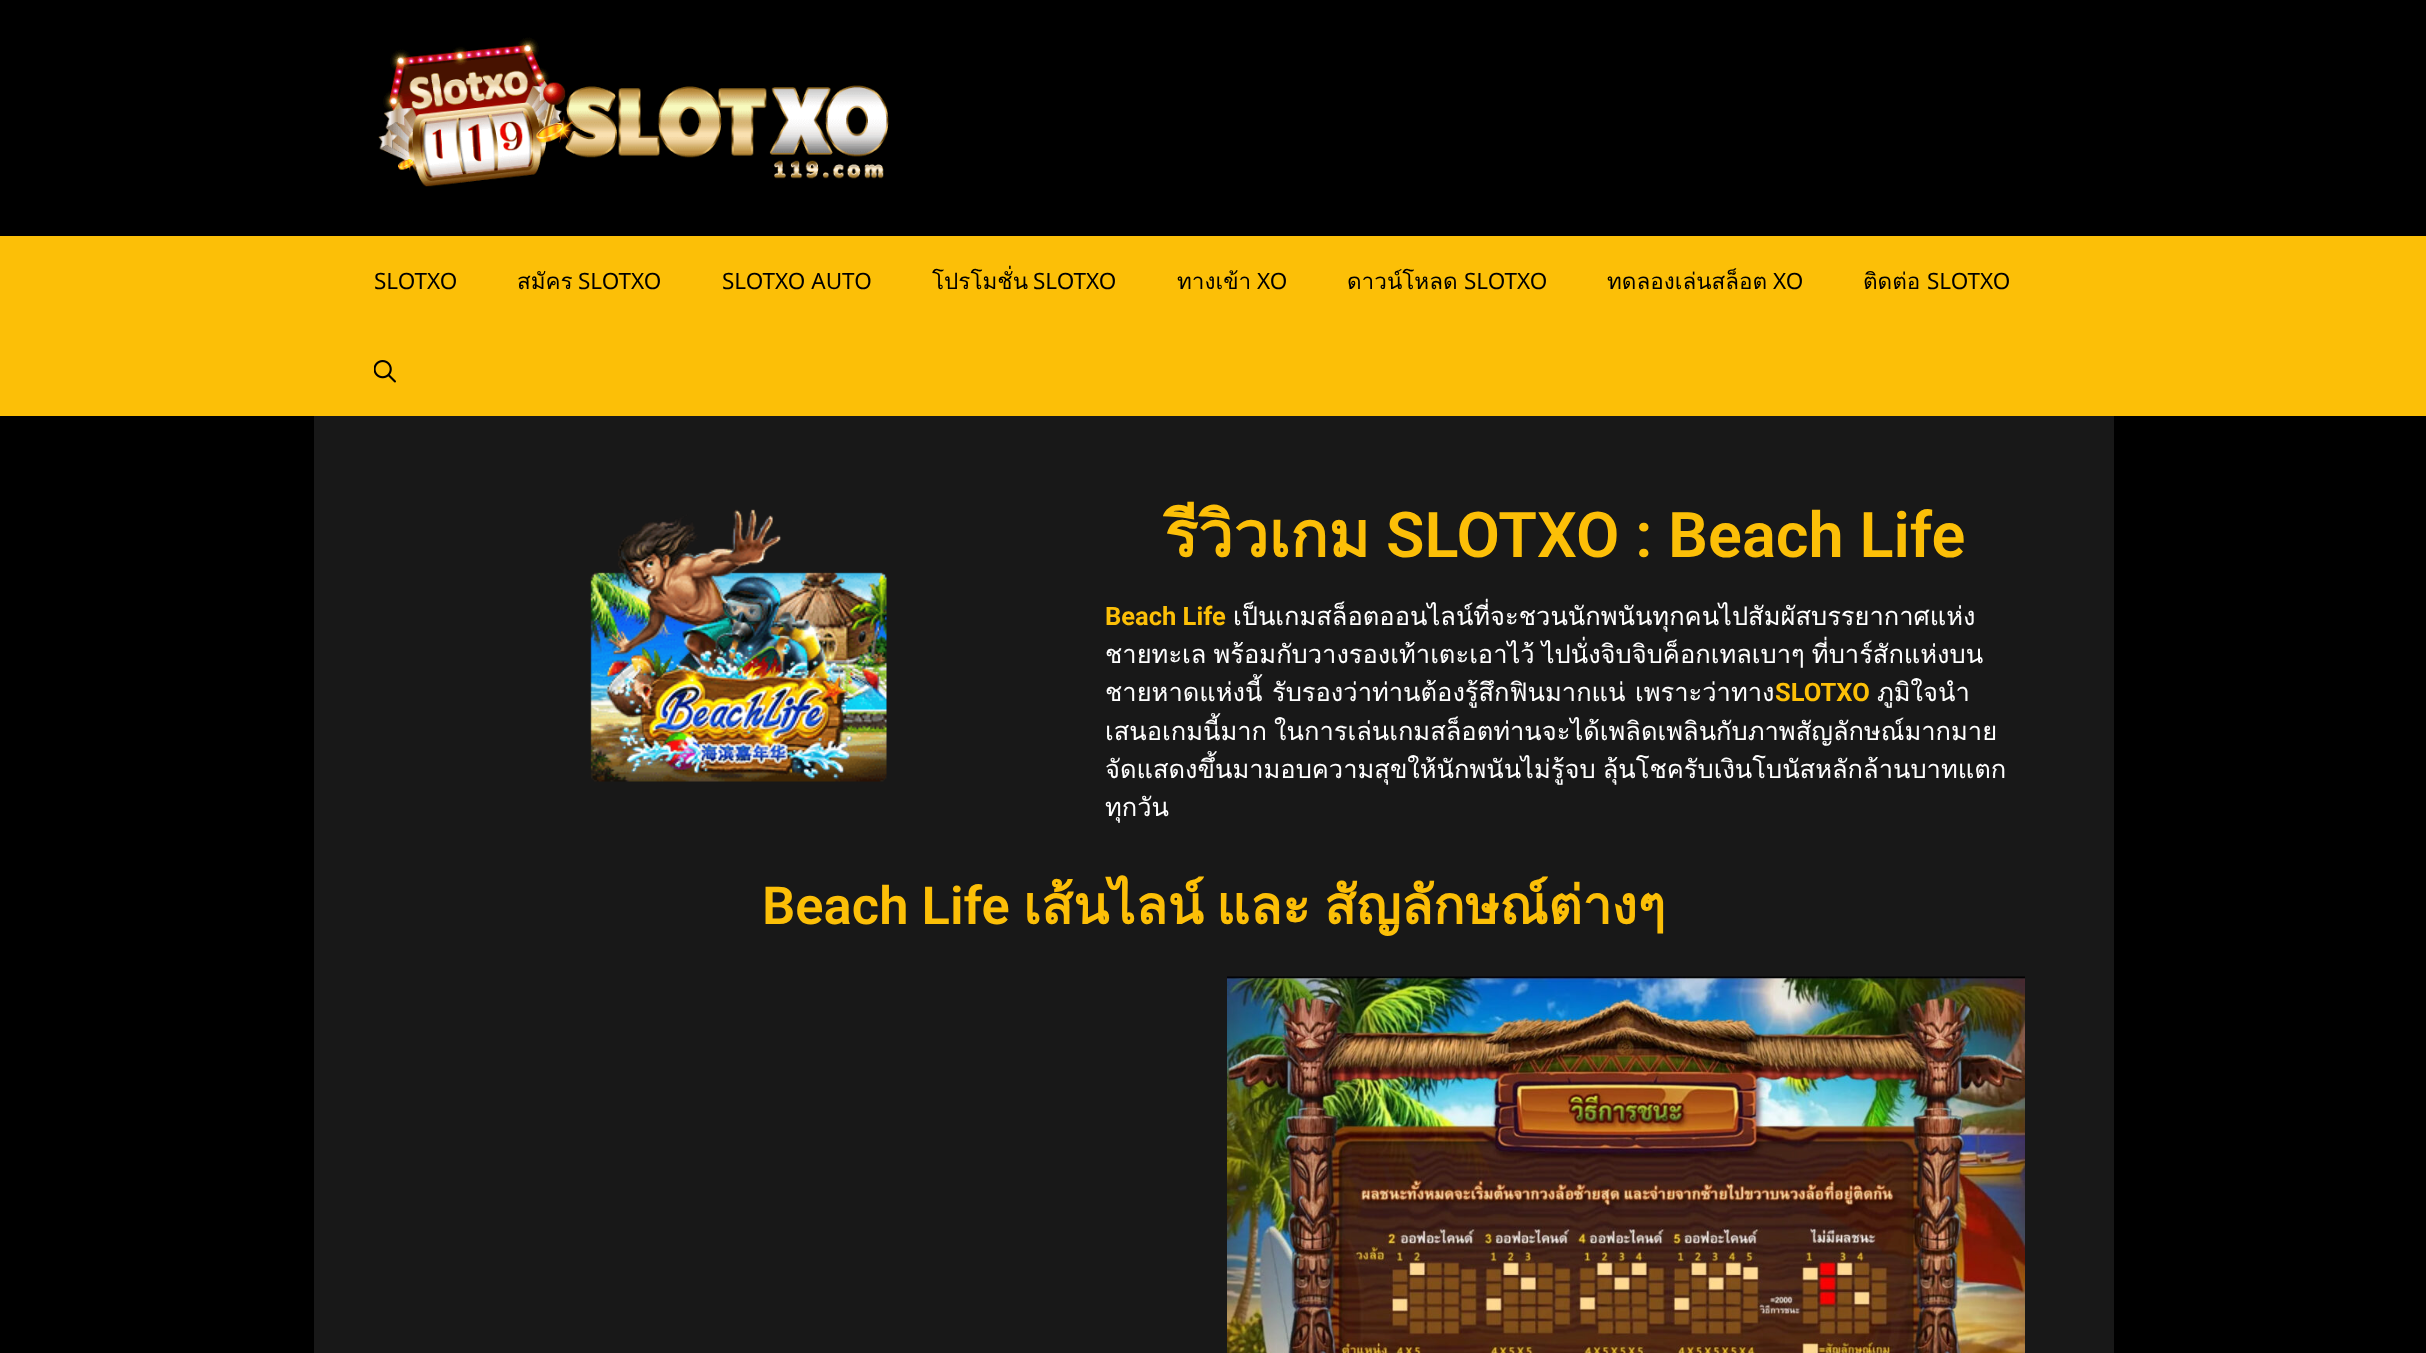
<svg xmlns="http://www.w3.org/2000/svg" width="2426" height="1353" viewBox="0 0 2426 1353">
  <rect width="100%" height="100%" fill="rgb(0,0,0)"/>
  <image x="378" y="37" width="511" height="150" href="pic1.png"/>
  <rect x="0" y="236" width="2426" height="180" fill="rgb(252,191,7)"/>
  <text x="374" y="289" font-family="Noto Sans" font-size="22.5" fill="rgb(0,0,0)">SLOTXO</text>
  <text x="517" y="289" font-family="Loma" font-size="22.5" fill="rgb(0,0,0)">สมัคร</text>
  <g font-family="Noto Sans" font-size="22.5" fill="rgb(0,0,0)">
    <text x="578" y="289">SLOTXO</text>
    <text x="722" y="289">SLOTXO AUTO</text>
  </g>
  <text x="932" y="289" font-family="Loma" font-size="22.5" fill="rgb(0,0,0)">โปรโมชั่น</text>
  <text x="1033" y="289" font-family="Noto Sans" font-size="22.5" fill="rgb(0,0,0)">SLOTXO</text>
  <text x="1177" y="289" font-family="Loma" font-size="22.5" fill="rgb(0,0,0)">ทางเข้า</text>
  <text x="1257" y="289" font-family="Noto Sans" font-size="22.5" fill="rgb(0,0,0)">XO</text>
  <text x="1347" y="289" font-family="Loma" font-size="22.5" fill="rgb(0,0,0)">ดาวน์โหลด</text>
  <text x="1464" y="289" font-family="Noto Sans" font-size="22.5" fill="rgb(0,0,0)">SLOTXO</text>
  <text x="1607" y="289" font-family="Loma" font-size="22.5" fill="rgb(0,0,0)">ทดลองเล่นสล็อต</text>
  <text x="1773" y="289" font-family="Noto Sans" font-size="22.5" fill="rgb(0,0,0)">XO</text>
  <text x="1863" y="289" font-family="Loma" font-size="22.5" fill="rgb(0,0,0)">ติดต่อ</text>
  <text x="1927" y="289" font-family="Noto Sans" font-size="22.5" fill="rgb(0,0,0)">SLOTXO</text>
  <image x="374" y="360" width="22" height="23" href="pic2.png"/>
  <rect x="314" y="416" width="1800" height="937" fill="rgb(24,24,24)"/>
  <image x="590" y="509" width="297" height="273" href="pic3.png"/>
  <text x="1164" y="557" font-family="Loma" font-size="63" font-weight="bold" fill="rgb(252,191,7)">รีวิวเกม</text>
  <text x="1386" y="557" font-family="Roboto" font-size="63" font-weight="600" fill="rgb(252,191,7)">SLOTXO : Beach Life</text>
  <text x="1105" y="625" font-family="Roboto" font-size="25.5" font-weight="bold" fill="rgb(252,191,7)">Beach Life</text>
  <g font-family="Loma" font-size="25.5" fill="rgb(255,255,255)">
    <text x="1233" y="625">เป็นเกมสล็อตออนไลน์ที่จะชวนนักพนันทุกคนไปสัมผัสบรรยากาศแห่ง</text>
    <text>
      <tspan x="1105" y="663" word-spacing="-1.5">ชายทะเล พร้อมกับวางรองเท้าเตะเอาไว้ ไปนั่งจิบจิบค็อกเทลเบาๆ ที่บาร์สักแห่งบน</tspan>
      <tspan x="1105" y="701" word-spacing="1">ชายหาดแห่งนี้ รับรองว่าท่านต้องรู้สึกฟินมากแน่ เพราะว่าทาง</tspan>
    </text>
  </g>
  <text x="1775" y="701" font-family="Roboto" font-size="25.5" font-weight="bold" fill="rgb(252,191,7)">SLOTXO</text>
  <g font-family="Loma" font-size="25.5" fill="rgb(255,255,255)">
    <text x="1877" y="701">ภูมิใจนำ</text>
    <text>
      <tspan x="1105" y="740" word-spacing="-1.5">เสนอเกมนี้มาก ในการเล่นเกมสล็อตท่านจะได้เพลิดเพลินกับภาพสัญลักษณ์มากมาย</tspan>
      <tspan x="1105" y="778" word-spacing="-1.5">จัดแสดงขึ้นมามอบความสุขให้นักพนันไม่รู้จบ ลุ้นโชครับเงินโบนัสหลักล้านบาทแตก</tspan>
      <tspan x="1105" y="816">ทุกวัน</tspan>
    </text>
  </g>
  <text x="762" y="924" font-family="Roboto" font-size="52.5" font-weight="600" fill="rgb(252,191,7)">Beach Life</text>
  <g font-family="Loma" font-size="52.5" font-weight="bold" fill="rgb(252,191,7)">
    <text x="1023" y="924">เส้นไลน์</text>
    <text x="1216" y="924">และ</text>
    <text x="1324" y="924">สัญลักษณ์ต่างๆ</text>
  </g>
  <image x="1227" y="976" width="798" height="377" href="pic4.png"/>
</svg>
